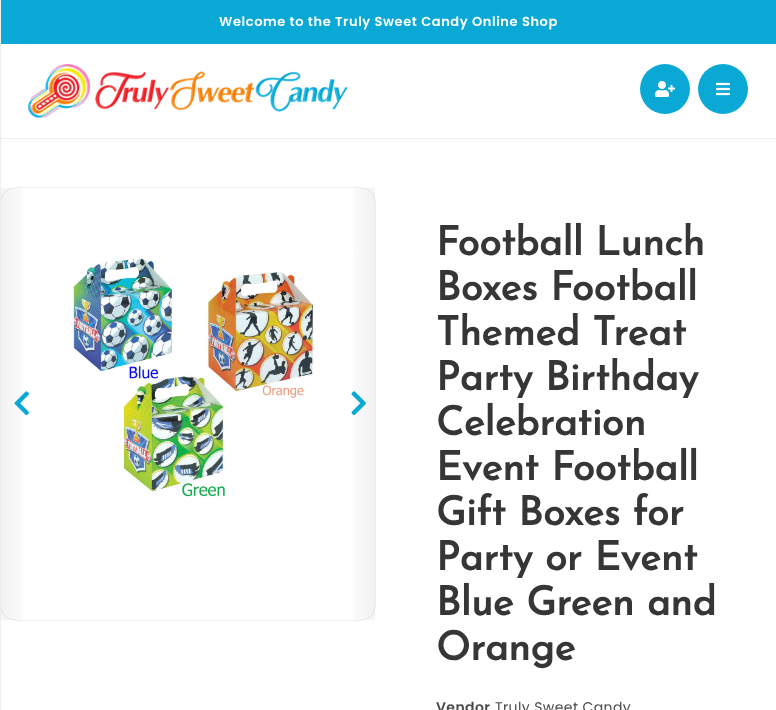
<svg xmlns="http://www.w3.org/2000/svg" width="776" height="710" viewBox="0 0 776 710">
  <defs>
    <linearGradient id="g1" gradientUnits="userSpaceOnUse" x1="1" y1="404" x2="38" y2="404"><stop offset="0" stop-color="rgb(0,0,0)" stop-opacity="0.05"/><stop offset="0.99" stop-color="rgb(0,0,0)" stop-opacity="0"/><stop offset="1" stop-color="rgb(0,0,0)" stop-opacity="0"/></linearGradient>
    <linearGradient id="g2" gradientUnits="userSpaceOnUse" x1="338" y1="404" x2="375" y2="404"><stop offset="0" stop-color="rgb(0,0,0)" stop-opacity="0"/><stop offset="0.01" stop-color="rgb(0,0,0)" stop-opacity="0"/><stop offset="1" stop-color="rgb(0,0,0)" stop-opacity="0.05"/></linearGradient>
  </defs>
  <rect width="100%" height="100%" fill="rgb(255,255,255)"/>
  <rect x="0" y="138" width="776" height="1" fill="rgb(238,238,238)"/>
  <rect x="0.5" y="187.5" width="375" height="433" rx="15.5" fill="none" stroke="rgb(238,238,238)"/>
  <rect x="0" y="0" width="1" height="710" fill="rgb(238,238,238)"/>
  <rect x="1" y="0" width="775" height="44" fill="rgb(10,169,213)"/>
  <text x="219" y="26" font-family="Poppins" font-size="13" font-weight="600" letter-spacing="0.6" fill="rgb(255,255,255)">Welcome to the Truly Sweet Candy Online Shop</text>
  <image x="28" y="64" width="320" height="54" href="pic1.png"/>
  <circle cx="665" cy="89" r="25" fill="rgb(10,169,213)"/>
  <image x="655" y="81" width="20" height="16" href="pic2.png"/>
  <circle cx="723" cy="89" r="25" fill="rgb(10,169,213)"/>
  <image x="716" y="82" width="14" height="14" href="pic3.png"/>
  <rect x="1" y="188" width="21" height="432" fill="url(#g1)"/>
  <image x="14" y="391" width="15" height="25" href="pic4.png"/>
  <rect x="354" y="188" width="21" height="432" fill="url(#g2)"/>
  <image x="351" y="391" width="15" height="25" href="pic5.png"/>
  <image x="72" y="258" width="242" height="240" href="pic6.png"/>
  <g font-family="Josefin Sans" font-size="40" font-weight="bold" fill="rgb(54,54,54)">
    <text>
      <tspan x="436" y="255">Football Lunch</tspan>
      <tspan x="436" y="300">Boxes Football</tspan>
      <tspan x="436" y="345">Themed Treat</tspan>
      <tspan x="436" y="390">Party Birthday</tspan>
      <tspan x="436" y="435">Celebration</tspan>
      <tspan x="436" y="480">Event Football</tspan>
      <tspan x="436" y="525">Gift Boxes for</tspan>
      <tspan x="436" y="570">Party or Event</tspan>
      <tspan x="436" y="615">Blue Green and</tspan>
      <tspan x="436" y="660">Orange</tspan>
    </text>
  </g>
  <text x="436" y="712" font-family="Poppins" font-size="14" font-weight="600" letter-spacing="0.4" fill="rgb(74,74,74)">Vendor</text>
  <text x="495" y="712" font-family="Poppins" font-size="14" letter-spacing="0.4" fill="rgb(74,74,74)">Truly Sweet Candy</text>
</svg>
